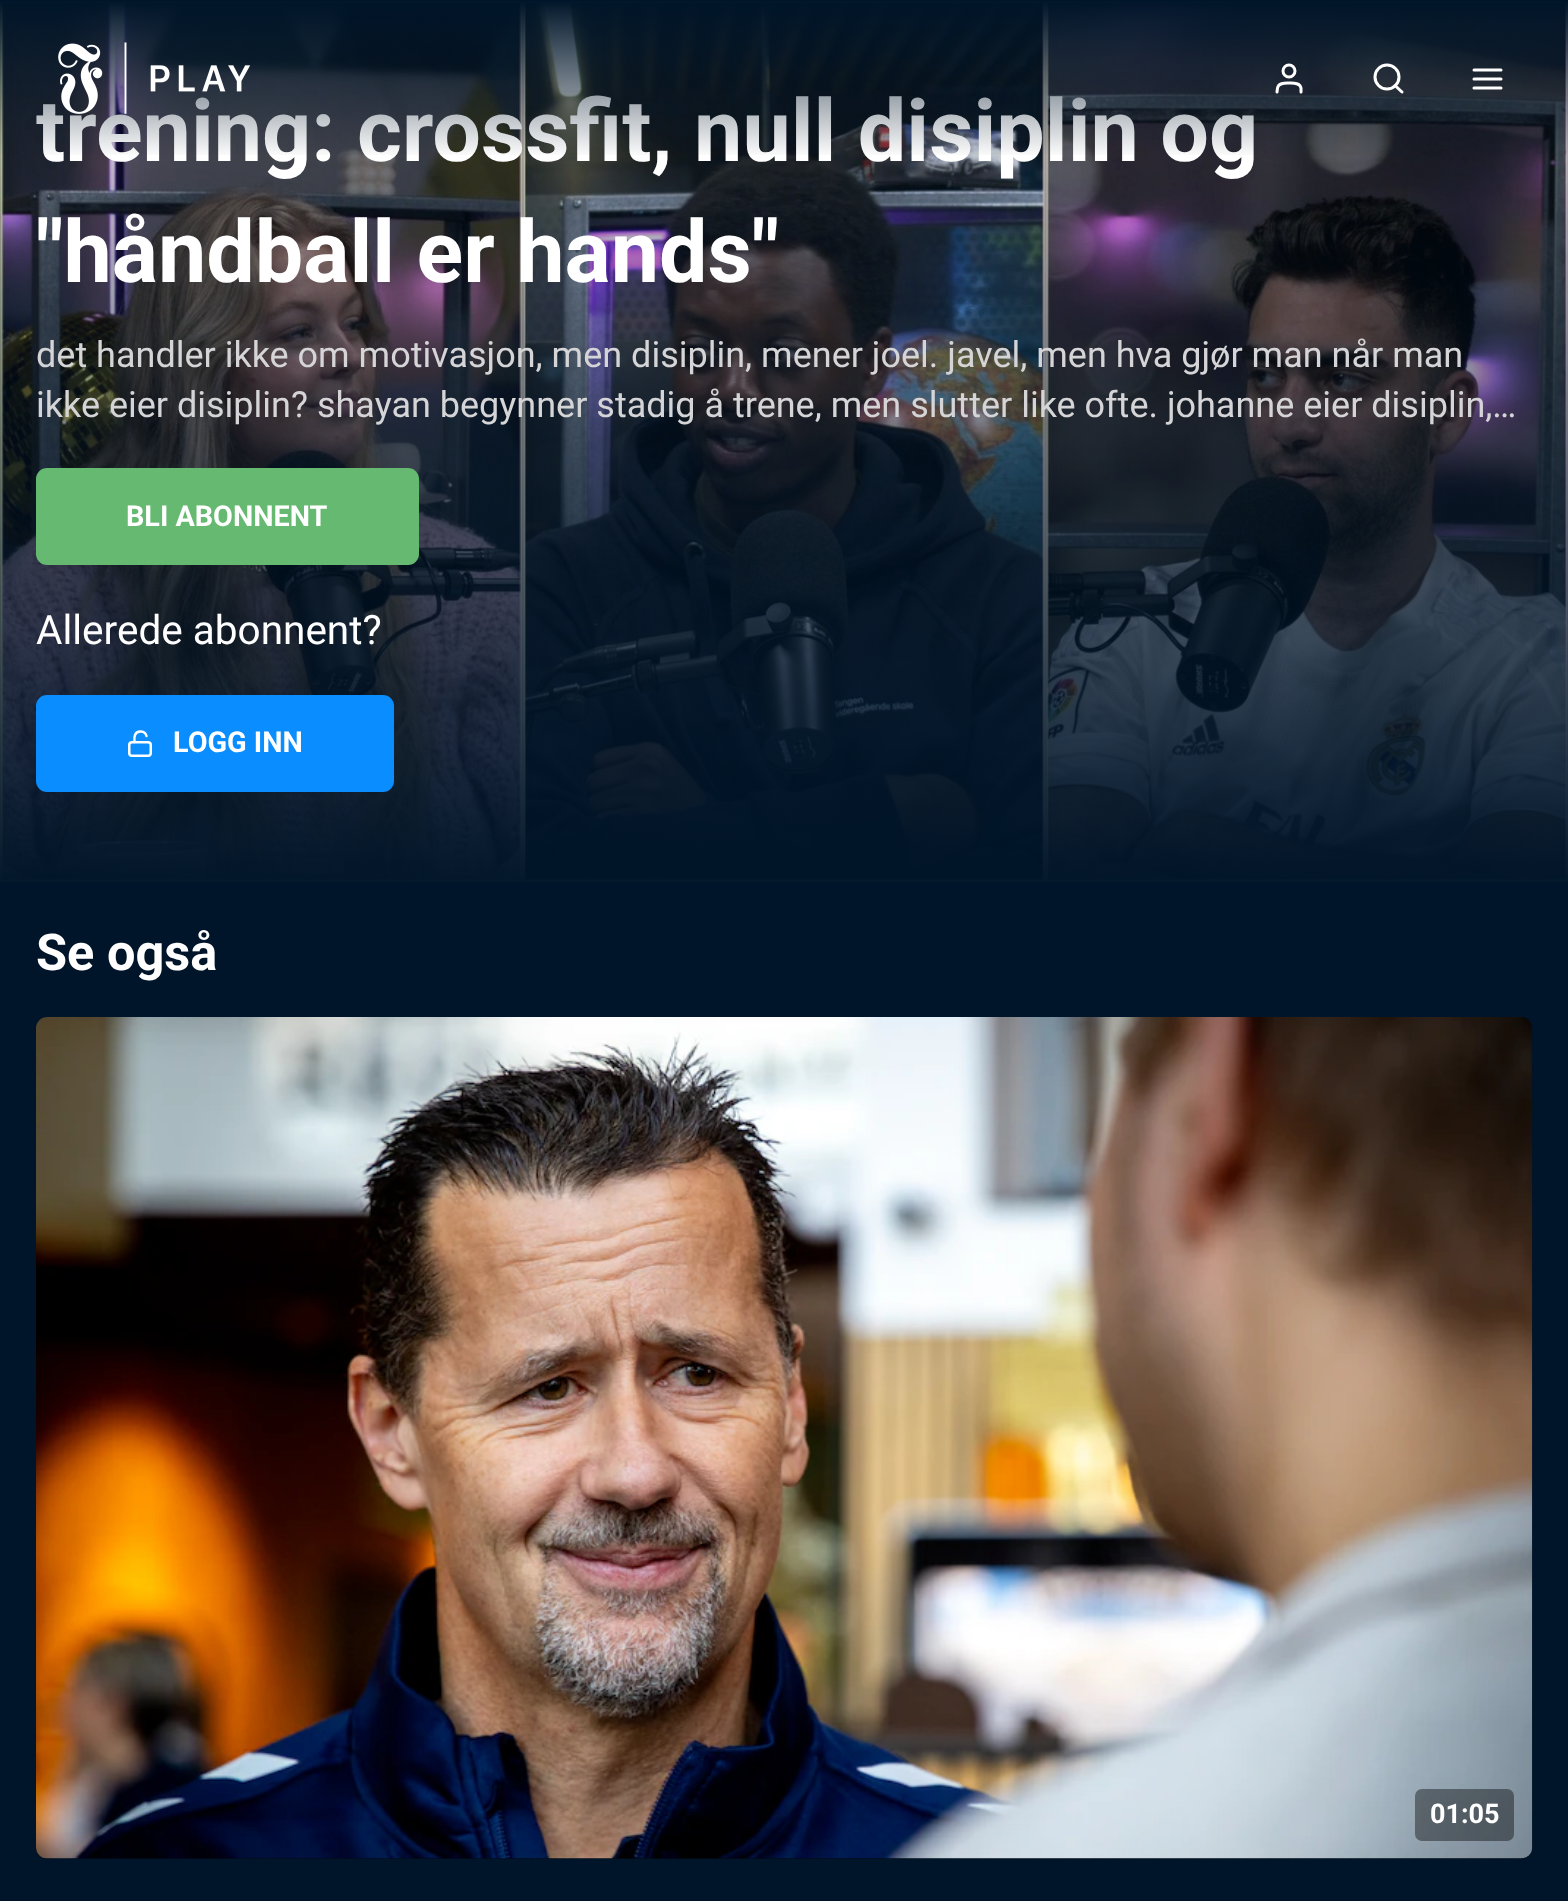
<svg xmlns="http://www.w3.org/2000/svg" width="1568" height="1901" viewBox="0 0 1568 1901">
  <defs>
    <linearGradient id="g1" gradientUnits="userSpaceOnUse" x1="784" y1="900" x2="784" y2="72"><stop offset="0" stop-color="rgb(0,21,41)"/><stop offset="1" stop-color="rgb(0,21,41)" stop-opacity="0"/></linearGradient>
    <linearGradient id="g2" gradientUnits="userSpaceOnUse" x1="784" y1="0" x2="784" y2="158"><stop offset="0" stop-color="rgb(0,21,41)"/><stop offset="1" stop-color="rgb(0,21,41)" stop-opacity="0"/></linearGradient>
    <linearGradient id="g3" gradientUnits="userSpaceOnUse" x1="200" y1="853" x2="1369" y2="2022"><stop offset="0" stop-color="rgb(0,0,0)" stop-opacity="0.2"/><stop offset="1" stop-color="rgb(0,0,0)" stop-opacity="0.6"/></linearGradient>
  </defs>
  <rect width="100%" height="100%" fill="rgb(0,21,41)"/>
  <image x="0" y="1" width="1568" height="881" href="pic2.png"/>
  <rect x="0" y="90" width="1568" height="792" fill="url(#g1)"/>
  <text x="36" y="161" font-family="Roboto" font-size="86.25" font-weight="bold" fill="rgb(255,255,255)">trening: crossfit, null disiplin og</text>
  <rect x="0" y="1" width="1568" height="154" fill="url(#g2)"/>
  <image x="58" y="42" width="193" height="72" href="pic1.png"/>
  <path d="M1301 92V88C1300 82.5 1293.5 83 1289 83C1285 83 1278.5 82.5 1277.5 88L1277 92" fill="none" stroke="rgb(255,255,255)" stroke-width="3" stroke-linecap="round" stroke-linejoin="round"/>
  <circle cx="1289" cy="71" r="6" fill="none" stroke="rgb(255,255,255)" stroke-width="3"/>
  <circle cx="1387" cy="77" r="12" fill="none" stroke="rgb(255,255,255)" stroke-width="3"/>
  <path d="M1402 92L1395 85.5" fill="none" stroke="rgb(255,255,255)" stroke-width="3" stroke-linecap="round" stroke-linejoin="round"/>
  <path d="M1474 79H1501M1474 70H1501M1474 88H1501" fill="none" stroke="rgb(255,255,255)" stroke-width="3" stroke-linecap="round" stroke-linejoin="round"/>
  <text x="36" y="282" font-family="Roboto" font-size="86.25" font-weight="bold" fill="rgb(255,255,255)">"håndball er hands"</text>
  <g font-family="Roboto" font-size="36" fill="rgb(213,213,215)">
    <text>
      <tspan x="36" y="367">det handler ikke om motivasjon, men disiplin, mener joel. javel, men hva gjør man når man</tspan>
      <tspan x="36" y="417">ikke eier disiplin? shayan begynner stadig å trene, men slutter like ofte. johanne eier disiplin,…</tspan>
    </text>
  </g>
  <rect x="36" y="468" width="383" height="97" rx="11" fill="rgb(101,185,112)"/>
  <text x="126" y="526" font-family="Roboto" font-size="28.75" font-weight="bold" fill="rgb(255,255,255)">BLI ABONNENT</text>
  <text x="36" y="644" font-family="Roboto" font-size="40.5" fill="rgb(255,255,255)">Allerede abonnent?</text>
  <rect x="36" y="695" width="358" height="97" rx="11" fill="rgb(10,141,255)"/>
  <rect x="129.25" y="742.25" width="21.5" height="13.5" rx="2.75" fill="none" stroke="rgb(255,255,255)" stroke-width="2.5"/>
  <path d="M134.5 742C134.5 740 134 737.5 135 735C137 730 145 730.5 146.5 736" fill="none" stroke="rgb(255,255,255)" stroke-width="2.4" stroke-linecap="round" stroke-linejoin="round"/>
  <text x="173" y="752" font-family="Roboto" font-size="28.75" font-weight="bold" fill="rgb(255,255,255)">LOGG INN</text>
  <text x="36" y="970" font-family="Roboto" font-size="50.5" font-weight="bold" fill="rgb(255,255,255)">Se også</text>
  <rect x="36" y="1017" width="1496" height="842" rx="11" fill="url(#g3)"/>
  <image x="36" y="1017" width="1497" height="842" href="pic3.png"/>
  <rect x="1415" y="1789" width="99" height="52" rx="7" fill="rgba(0,0,0,0.4)"/>
  <text x="1430" y="1823" font-family="Roboto" font-size="27" font-weight="bold" fill="rgb(255,255,255)">01:05</text>
</svg>
